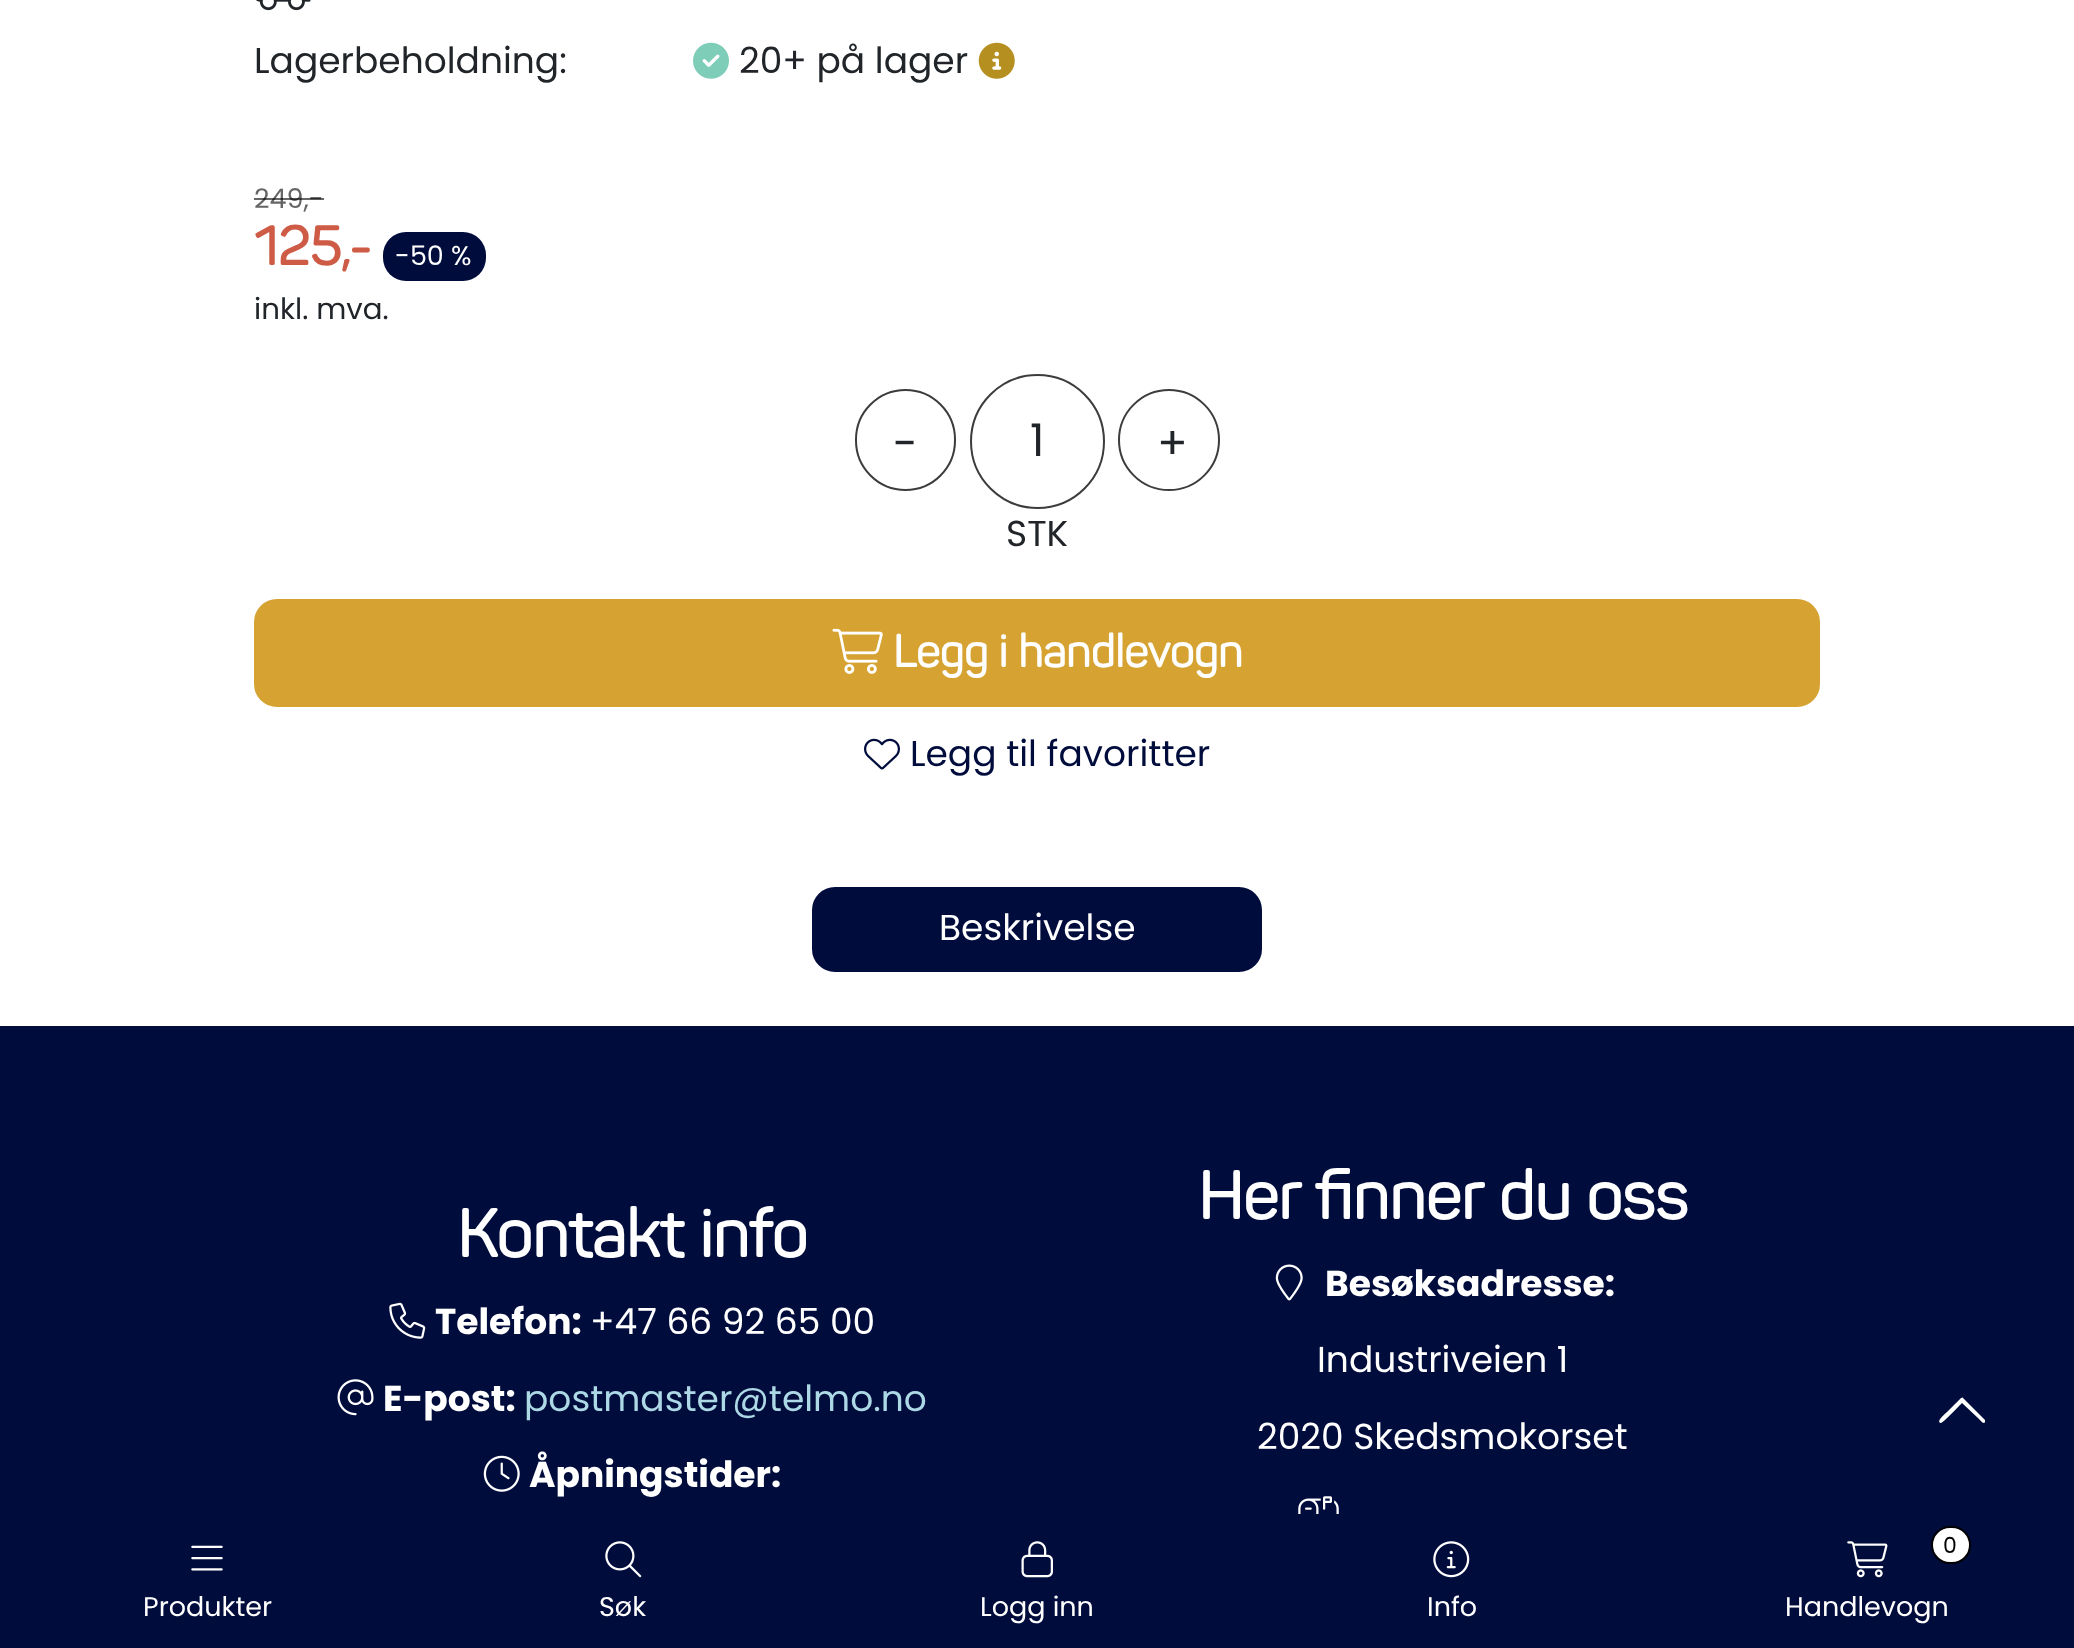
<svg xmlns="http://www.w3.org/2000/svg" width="2074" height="1648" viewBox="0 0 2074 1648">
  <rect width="100%" height="100%" fill="rgb(255,255,255)"/>
  <image x="256" y="0" width="55" height="11" href="pic1.png"/>
  <text x="254" y="73" font-family="Poppins" font-size="36" fill="rgb(33,37,41)">Lagerbeholdning:</text>
  <image x="693" y="42" width="36" height="37" href="pic2.png"/>
  <text x="739" y="73" font-family="Poppins" font-size="36" fill="rgb(33,37,41)">20+ på lager</text>
  <image x="978" y="42" width="37" height="37" href="pic3.png"/>
  <text x="254" y="208" font-family="Poppins" font-size="27" fill="rgb(102,102,102)">249,-</text>
  <rect x="254" y="198" width="70" height="2" fill="rgba(0,0,0,0.6)"/>
  <text x="254" y="265" font-family="'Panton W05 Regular'" font-size="54" font-weight="bold" fill="rgb(205,91,69)">125,-</text>
  <rect x="383" y="232" width="103" height="49" rx="23" fill="rgb(0,12,60)"/>
  <text x="395" y="265" font-family="Poppins" font-size="27" fill="rgb(255,255,255)">-50 %</text>
  <text x="254" y="319" font-family="Poppins" font-size="29.25" fill="rgb(33,37,41)">inkl. mva.</text>
  <rect x="856" y="390" width="99" height="100" rx="49.5" fill="none" stroke="rgb(59,60,61)" stroke-width="2"/>
  <text x="893" y="459" font-family="Poppins" font-size="45" fill="rgb(33,37,41)">-</text>
  <circle cx="1037.5" cy="441.5" r="66.5" fill="none" stroke="rgb(59,60,61)" stroke-width="2"/>
  <text x="1030" y="456" font-family="Poppins" font-size="45" fill="rgb(33,37,41)">1</text>
  <circle cx="1169" cy="440" r="50" fill="none" stroke="rgb(59,60,61)" stroke-width="2"/>
  <text x="1157" y="459" font-family="Poppins" font-size="45" fill="rgb(33,37,41)">+</text>
  <text x="1006" y="546" font-family="Poppins" font-size="36" fill="rgb(33,37,41)">STK</text>
  <rect x="255" y="600" width="1564" height="106" rx="22" fill="rgb(214,163,51)" stroke="rgb(214,163,51)" stroke-width="2"/>
  <image x="832" y="628" width="51" height="46" href="pic4.png"/>
  <text x="893" y="667" font-family="'Panton W05 Regular'" font-size="45" font-weight="bold" fill="rgb(255,255,255)">Legg i handlevogn</text>
  <image x="864" y="738" width="36" height="32" href="pic5.png"/>
  <text x="910" y="766" font-family="Poppins" font-size="36" fill="rgb(0,12,60)">Legg til favoritter</text>
  <rect x="813" y="888" width="448" height="83" rx="22" fill="rgb(0,12,60)" stroke="rgb(0,12,60)" stroke-width="2"/>
  <text x="939" y="940" font-family="Poppins" font-size="36" fill="rgb(255,255,255)">Beskrivelse</text>
  <rect x="0" y="1026" width="2074" height="622" fill="rgb(0,12,60)"/>
  <path d="M1961 1398C1962 1398 1963 1397 1963 1398L1985 1420V1422C1984 1425 1980 1420 1979 1419L1962 1403C1960 1405 1943 1423 1941 1423C1935 1422 1946 1413 1947 1412Z" fill="rgb(255,255,255)"/>
  <image x="191" y="1545" width="32" height="26" href="pic6.png"/>
  <text x="143" y="1616" font-family="Poppins" font-size="27" fill="rgb(255,255,255)">Produkter</text>
  <image x="605" y="1541" width="37" height="37" href="pic7.png"/>
  <text x="599" y="1616" font-family="Poppins" font-size="27" fill="rgb(255,255,255)">Søk</text>
  <image x="1021" y="1541" width="32" height="37" href="pic8.png"/>
  <text x="980" y="1616" font-family="Poppins" font-size="27" fill="rgb(255,255,255)">Logg inn</text>
  <image x="1433" y="1541" width="37" height="37" href="pic9.png"/>
  <text x="1427" y="1616" font-family="Poppins" font-size="27" fill="rgb(255,255,255)">Info</text>
  <image x="1847" y="1541" width="41" height="37" href="pic10.png"/>
  <rect x="1932" y="1527" width="38" height="36" rx="18" fill="rgb(255,255,255)" stroke="rgb(0,0,0)" stroke-width="2"/>
  <text x="1943" y="1553" font-family="Poppins" font-size="22" fill="rgb(0,0,0)">0</text>
  <text x="1785" y="1616" font-family="Poppins" font-size="27" fill="rgb(255,255,255)">Handlevogn</text>
  <text x="457" y="1257" font-family="'Panton W05 Regular'" font-size="66.5" font-weight="bold" fill="rgb(255,255,255)">Kontakt info</text>
  <image x="389" y="1302" width="37" height="37" href="pic11.png"/>
  <text x="435" y="1334" font-family="Poppins" font-size="36" font-weight="bold" fill="rgb(255,255,255)">Telefon:</text>
  <text x="590" y="1334" font-family="Poppins" font-size="36" fill="rgb(255,255,255)">+47 66 92 65 00</text>
  <image x="337" y="1379" width="37" height="37" href="pic12.png"/>
  <text x="383" y="1411" font-family="Poppins" font-size="36" font-weight="bold" fill="rgb(255,255,255)">E-post:</text>
  <text x="524" y="1411" font-family="Poppins" font-size="36" fill="rgb(173,216,230)">postmaster@telmo.no</text>
  <image x="483" y="1455" width="37" height="37" href="pic13.png"/>
  <text x="529" y="1487" font-family="Poppins" font-size="36" font-weight="bold" fill="rgb(255,255,255)">Åpningstider:</text>
  <text x="1198" y="1219" word-spacing="-0.5" font-family="'Panton W05 Regular'" font-size="66.5" font-weight="bold" fill="rgb(255,255,255)">Her finner du oss</text>
  <image x="1275" y="1264" width="28" height="37" href="pic14.png"/>
  <text x="1325" y="1296" font-family="Poppins" font-size="36" font-weight="bold" fill="rgb(255,255,255)">Besøksadresse:</text>
  <g font-family="Poppins" font-size="36" fill="rgb(255,255,255)">
    <text x="1317" y="1372">Industriveien 1</text>
    <text x="1257" y="1449">2020 Skedsmokorset</text>
  </g>
  <image x="1298" y="1496" width="41" height="18" href="pic15.png"/>
</svg>
